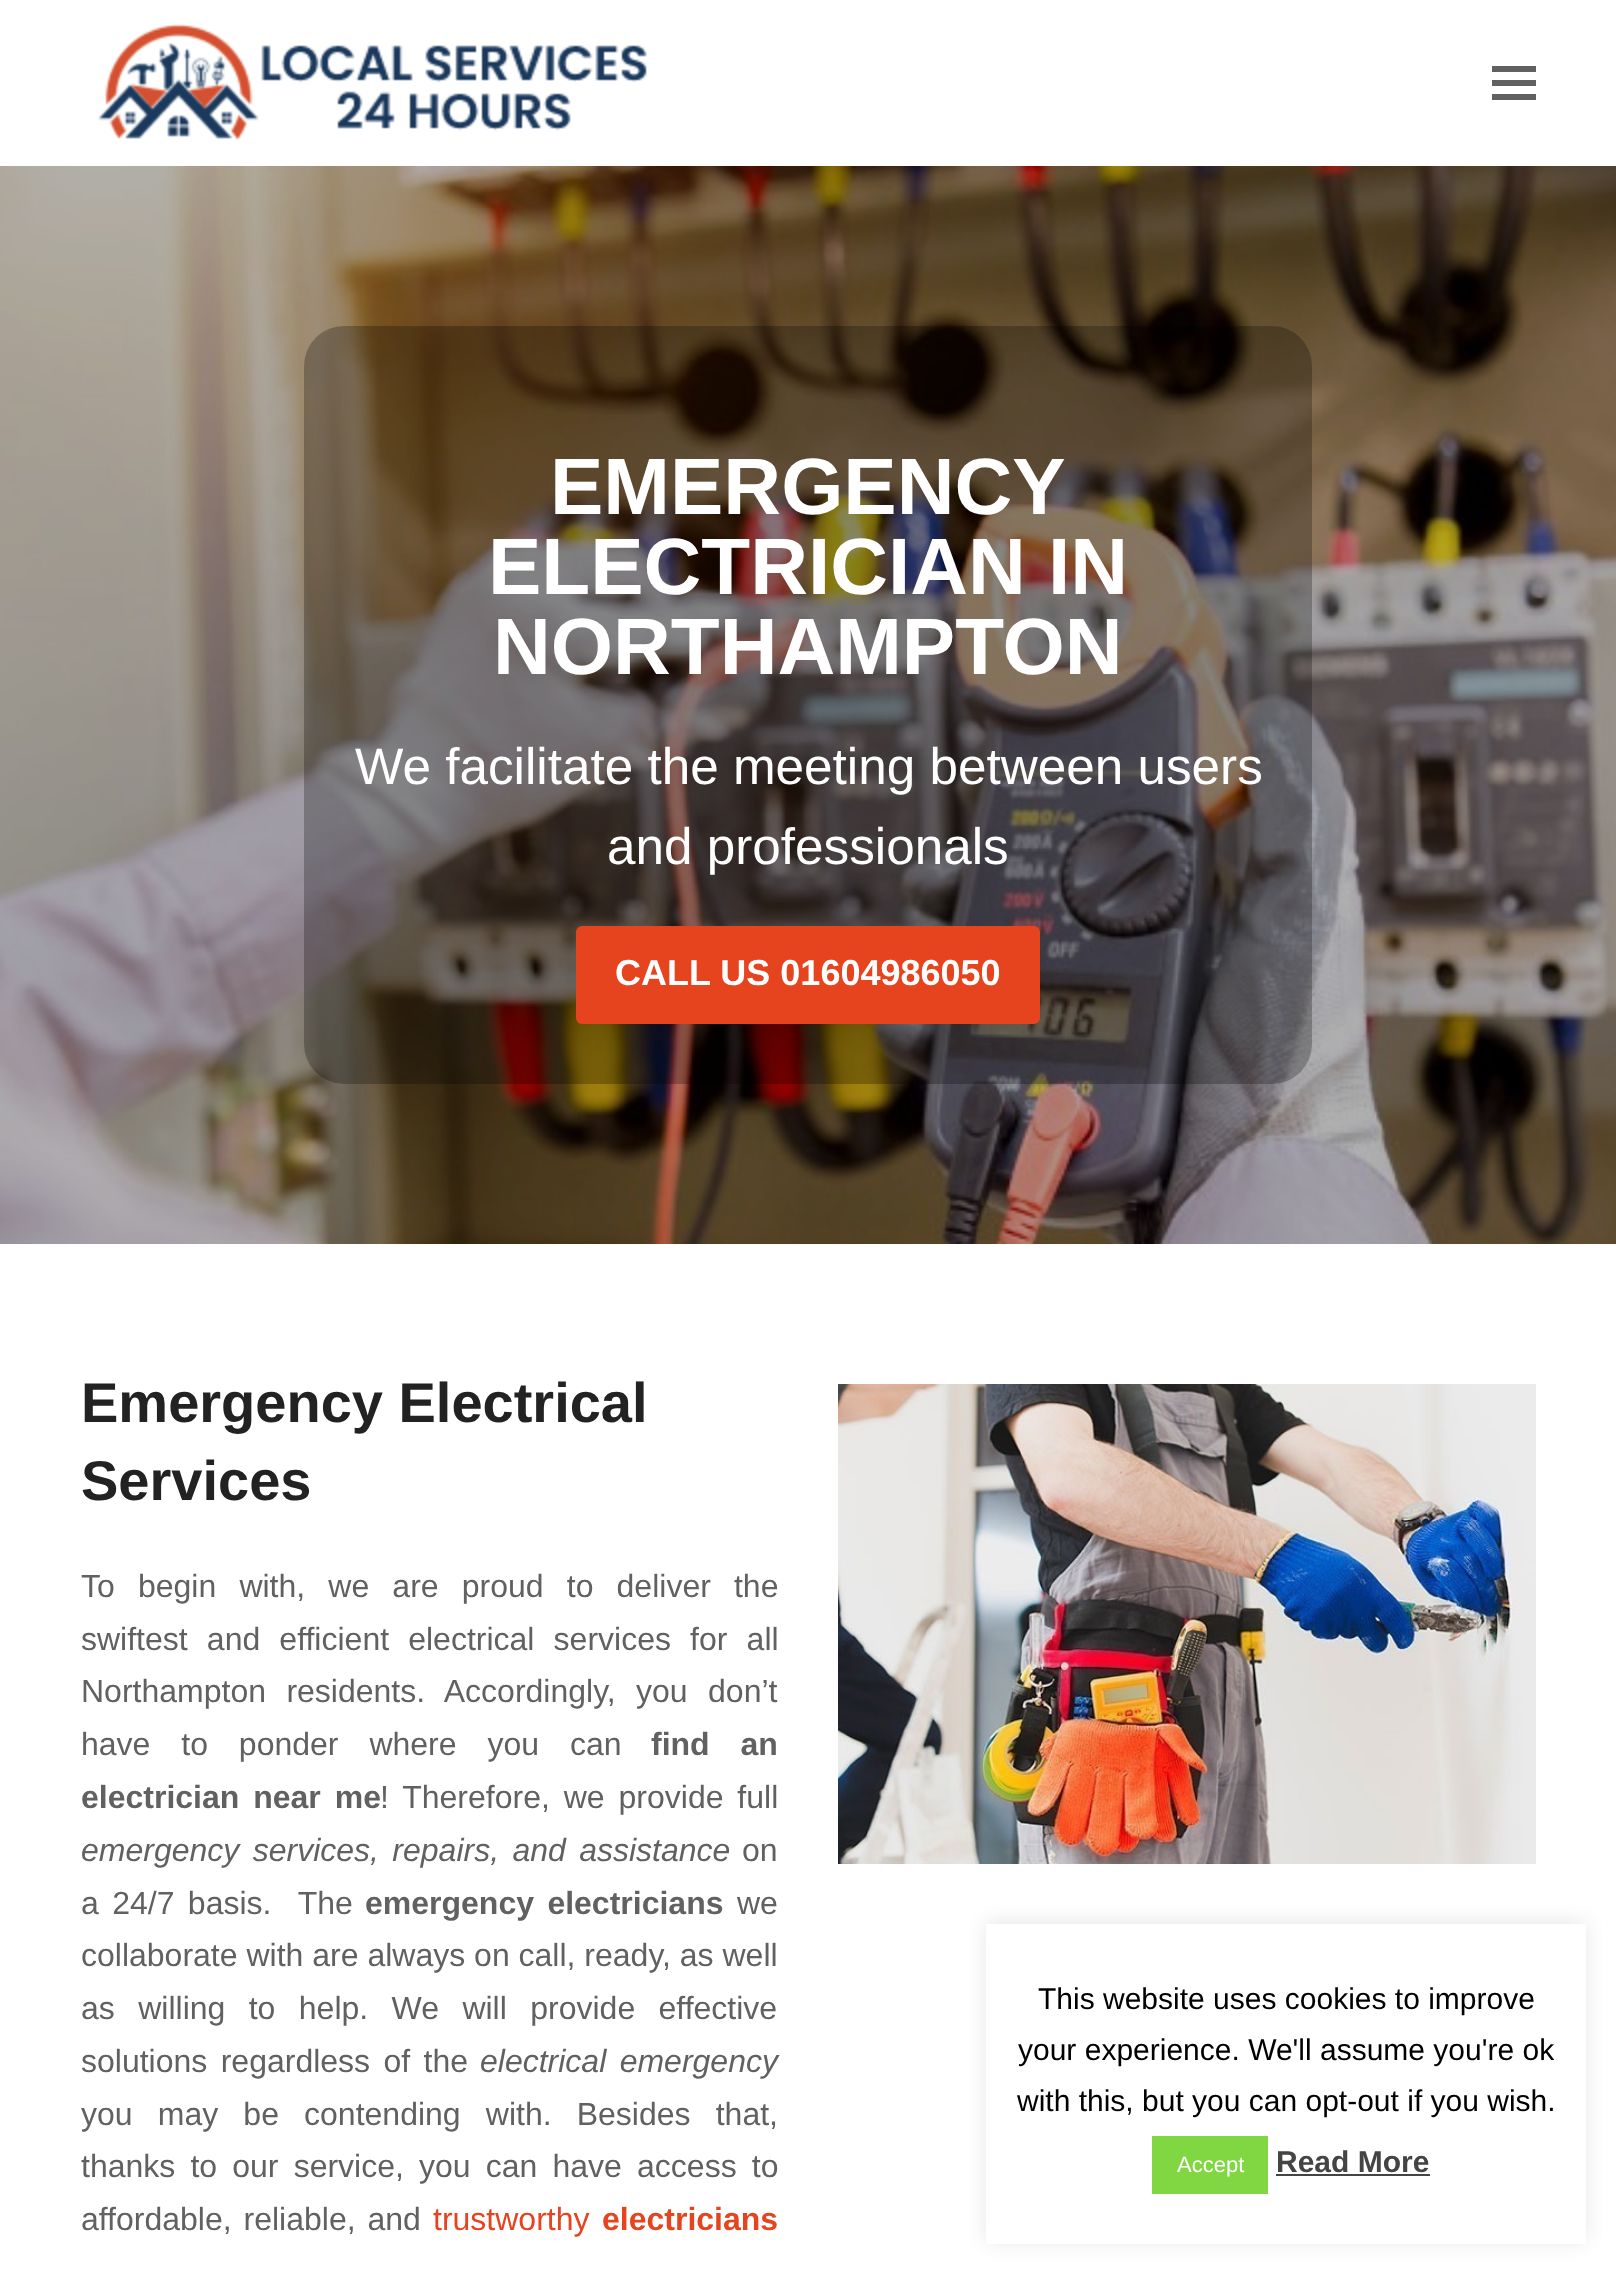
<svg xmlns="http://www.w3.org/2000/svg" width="1616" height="2274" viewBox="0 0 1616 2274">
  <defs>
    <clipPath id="clip1"><path d="M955 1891H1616V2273H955ZM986 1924H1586V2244H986Z" clip-rule="evenodd"/></clipPath>
  </defs>
  <rect width="100%" height="100%" fill="rgb(255,255,255)"/>
  <image x="98" y="23" width="549" height="118" href="pic1.png"/>
  <rect x="1492" y="80" width="44" height="6" fill="rgb(97,97,97)"/>
  <rect x="1492" y="66" width="44" height="6" fill="rgb(97,97,97)"/>
  <rect x="1492" y="94" width="44" height="6" fill="rgb(97,97,97)"/>
  <image x="0" y="166" width="1616" height="1078" href="pic2.png"/>
  <rect x="304" y="326" width="1008" height="758" rx="40" fill="rgba(0,0,0,0.25)"/>
  <g font-family="Liberation Sans" font-size="80" font-weight="bold" fill="rgb(255,255,255)">
    <text x="550" y="514">EMERGENCY</text>
    <text x="488" y="594">ELECTRICIAN IN</text>
    <text x="493" y="674">NORTHAMPTON</text>
  </g>
  <g font-family="Liberation Sans" font-size="51.25" fill="rgb(255,255,255)">
    <text x="355" y="784">We facilitate the meeting between users</text>
    <text x="607" y="864">and professionals</text>
  </g>
  <rect x="576" y="926" width="464" height="98" rx="6" fill="rgb(230,67,31)"/>
  <text x="615" y="985" font-family="Liberation Sans" font-size="36" font-weight="bold" fill="rgb(255,255,255)">CALL US 01604986050</text>
  <g font-family="Liberation Sans" font-size="56" font-weight="bold" fill="rgb(34,34,34)">
    <text>
      <tspan x="81" y="1422">Emergency Electrical</tspan>
      <tspan x="81" y="1500">Services</tspan>
    </text>
  </g>
  <g font-family="Liberation Sans" font-size="32" fill="rgb(97,97,97)">
    <text>
      <tspan x="81" y="1597" word-spacing="14.25">To begin with, we are proud to deliver the</tspan>
      <tspan x="81" y="1650" word-spacing="10.25">swiftest and efficient electrical services for all</tspan>
      <tspan x="81" y="1702" word-spacing="11.5">Northampton residents. Accordingly, you don’t</tspan>
      <tspan x="81" y="1755" word-spacing="22">have to ponder where you can</tspan>
    </text>
  </g>
  <g font-family="Liberation Sans" font-size="32" font-weight="bold" fill="rgb(97,97,97)">
    <text x="651" y="1755" word-spacing="22">find an</text>
    <text x="81" y="1808" word-spacing="5">electrician near me</text>
  </g>
  <text x="380" y="1808" word-spacing="5" font-family="Liberation Sans" font-size="32" fill="rgb(97,97,97)">! Therefore, we provide full</text>
  <text x="81" y="1861" word-spacing="4.5" font-family="Liberation Sans" font-size="32" font-style="italic" fill="rgb(97,97,97)">emergency services, repairs, and assistance</text>
  <g font-family="Liberation Sans" font-size="32" fill="rgb(97,97,97)">
    <text x="742" y="1861">on</text>
    <text x="81" y="1914" word-spacing="4.5" xml:space="preserve">a 24/7 basis.  The</text>
  </g>
  <text x="365" y="1914" word-spacing="4.5" font-family="Liberation Sans" font-size="32" font-weight="bold" fill="rgb(97,97,97)">emergency electricians</text>
  <g font-family="Liberation Sans" font-size="32" fill="rgb(97,97,97)">
    <text x="737" y="1914">we</text>
    <text>
      <tspan x="81" y="1966">collaborate with are always on call, ready, as well</tspan>
      <tspan x="81" y="2019" word-spacing="14.5">as willing to help. We will provide effective</tspan>
      <tspan x="81" y="2072" word-spacing="4.5">solutions regardless of the</tspan>
    </text>
  </g>
  <text x="480" y="2072" word-spacing="4.5" font-family="Liberation Sans" font-size="32" font-style="italic" fill="rgb(97,97,97)">electrical emergency</text>
  <g font-family="Liberation Sans" font-size="32" fill="rgb(97,97,97)">
    <text>
      <tspan x="81" y="2125" word-spacing="16.25">you may be contending with. Besides that,</tspan>
      <tspan x="81" y="2177" word-spacing="6.25">thanks to our service, you can have access to</tspan>
      <tspan x="81" y="2230" word-spacing="3">affordable, reliable, and</tspan>
    </text>
  </g>
  <text x="433" y="2230" font-family="Liberation Sans" font-size="32" fill="rgb(230,67,31)">trustworthy</text>
  <text x="602" y="2230" font-family="Liberation Sans" font-size="32" font-weight="bold" fill="rgb(230,67,31)">electricians</text>
  <image x="838" y="1384" width="698" height="480" href="pic3.png"/>
  <g clip-path="url(#clip1)">
    <rect x="986" y="1922" width="600" height="320" fill="rgba(172,171,171,0.3)" filter="blur(10px)"/>
  </g>
  <g font-family="Liberation Sans" font-size="30" fill="rgb(0,0,0)">
    <text x="1038" y="2009">This website uses cookies to improve</text>
    <text x="1018" y="2060">your experience. We'll assume you're ok</text>
    <text x="1017" y="2111">with this, but you can opt-out if you wish.</text>
  </g>
  <rect x="1152" y="2136" width="116" height="58" fill="rgb(129,215,66)"/>
  <text x="1177" y="2172" font-family="Liberation Sans" font-size="22" fill="rgb(255,255,255)">Accept</text>
  <text x="1276" y="2172" font-family="Liberation Sans" font-size="30" font-weight="bold" fill="rgb(68,68,68)">Read More</text>
  <rect x="1276" y="2174" width="154" height="2" fill="rgb(68,68,68)"/>
</svg>
